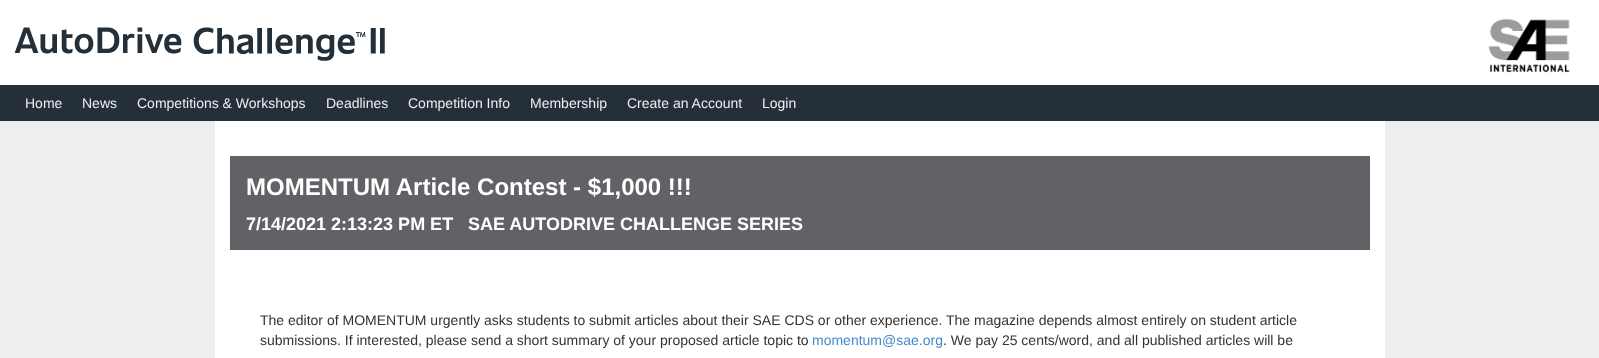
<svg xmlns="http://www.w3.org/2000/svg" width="1599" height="358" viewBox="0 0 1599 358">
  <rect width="100%" height="100%" fill="rgb(36,47,57)"/>
  <rect x="0" y="0" width="1599" height="85" fill="rgb(255,255,255)"/>
  <image x="14" y="27" width="371" height="34" href="pic1.png"/>
  <image x="1488" y="18" width="82" height="55" href="pic2.png"/>
  <g font-family="Liberation Sans" font-size="14" fill="rgb(238,238,238)">
    <text x="25" y="108">Home</text>
    <text x="82" y="108">News</text>
    <text x="137" y="108">Competitions &amp; Workshops</text>
    <text x="326" y="108">Deadlines</text>
    <text x="408" y="108">Competition Info</text>
    <text x="530" y="108">Membership</text>
    <text x="627" y="108">Create an Account</text>
    <text x="762" y="108">Login</text>
  </g>
  <rect x="0" y="121" width="1599" height="237" fill="rgb(238,238,238)"/>
  <rect x="215" y="121" width="1170" height="237" fill="rgb(255,255,255)"/>
  <rect x="230" y="156" width="1140" height="94" fill="rgb(97,98,101)"/>
  <text x="246" y="195" font-family="Liberation Sans" font-size="24" font-weight="bold" fill="rgb(255,255,255)">MOMENTUM Article Contest - $1,000 !!!</text>
  <g font-family="Liberation Sans" font-size="18" font-weight="bold" fill="rgb(255,255,255)">
    <text x="246" y="230">7/14/2021 2:13:23 PM ET</text>
    <text x="468" y="230">SAE AUTODRIVE CHALLENGE SERIES</text>
  </g>
  <g font-family="Liberation Sans" font-size="14" fill="rgb(51,51,51)">
    <text>
      <tspan x="260" y="325">The editor of MOMENTUM urgently asks students to submit articles about their SAE CDS or other experience. The magazine depends almost entirely on student article</tspan>
      <tspan x="260" y="345">submissions. If interested, please send a short summary of your proposed article topic to</tspan>
    </text>
  </g>
  <text x="812" y="345" font-family="Liberation Sans" font-size="14" fill="rgb(66,139,202)">momentum@sae.org</text>
  <text x="943" y="345" font-family="Liberation Sans" font-size="14" fill="rgb(51,51,51)">. We pay 25 cents/word, and all published articles will be</text>
</svg>
